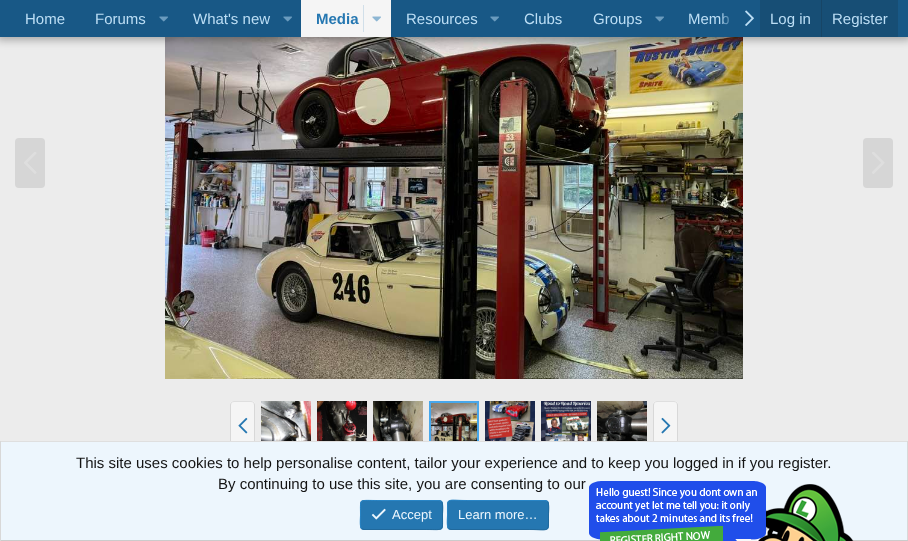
<svg xmlns="http://www.w3.org/2000/svg" width="908" height="541" viewBox="0 0 908 541">
  <defs>
    <linearGradient id="g1" gradientUnits="userSpaceOnUse" x1="720" y1="19" x2="760" y2="19"><stop offset="0" stop-color="rgb(24,88,134)" stop-opacity="0"/><stop offset="0.33" stop-color="rgb(24,88,134)"/></linearGradient>
  </defs>
  <rect width="100%" height="100%" fill="rgb(236,236,236)"/>
  <image x="165" y="37" width="578" height="342" href="pic5.png"/>
  <rect x="-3" y="-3" width="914" height="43" fill="rgba(0,0,0,0.3)" filter="blur(4px)"/>
  <rect x="0" y="0" width="908" height="37" fill="rgb(24,88,134)"/>
  <g font-family="Liberation Sans" font-size="15" fill="rgb(188,222,245)">
    <text x="25" y="24">Home</text>
    <text x="95" y="24">Forums</text>
  </g>
  <image x="159" y="16" width="9" height="6" href="pic1.png"/>
  <text x="193" y="24" font-family="Liberation Sans" font-size="15" fill="rgb(188,222,245)">What's new</text>
  <image x="283" y="16" width="9" height="6" href="pic1.png"/>
  <rect x="301" y="0" width="90" height="37" fill="rgb(245,245,245)"/>
  <text x="316" y="24" font-family="Liberation Sans" font-size="15" font-weight="bold" fill="rgb(37,119,177)">Media</text>
  <rect x="363" y="5" width="1" height="27" fill="rgb(209,223,233)"/>
  <image x="372" y="16" width="9" height="6" href="pic2.png"/>
  <text x="406" y="24" font-family="Liberation Sans" font-size="15" fill="rgb(188,222,245)">Resources</text>
  <image x="490" y="16" width="9" height="6" href="pic1.png"/>
  <g font-family="Liberation Sans" font-size="15" fill="rgb(188,222,245)">
    <text x="524" y="24">Clubs</text>
    <text x="593" y="24">Groups</text>
  </g>
  <image x="655" y="16" width="9" height="6" href="pic1.png"/>
  <text x="688" y="24" font-family="Liberation Sans" font-size="15" fill="rgb(188,222,245)">Memb</text>
  <rect x="720" y="13" width="10" height="12" fill="url(#g1)"/>
  <image x="745" y="10" width="9" height="16" href="pic3.png"/>
  <rect x="760" y="0" width="138" height="37" fill="rgb(23,78,117)"/>
  <text x="770" y="24" font-family="Liberation Sans" font-size="15" fill="rgb(188,222,245)">Log in</text>
  <rect x="821" y="0" width="1" height="37" fill="rgb(23,69,102)"/>
  <text x="832" y="24" font-family="Liberation Sans" font-size="15" fill="rgb(188,222,245)">Register</text>
  <rect x="15" y="138" width="30" height="50" rx="4" fill="rgb(214,214,214)"/>
  <image x="24" y="152" width="13" height="22" href="pic4.png"/>
  <rect x="863" y="138" width="30" height="50" rx="4" fill="rgb(214,214,214)"/>
  <image x="872" y="152" width="13" height="22" href="pic6.png"/>
  <rect x="230" y="401" width="25" height="50" rx="4" fill="rgb(245,245,245)"/>
  <path d="M231.5 402.5C232 402 233 401.5 234 401.5H251C252 401.5 253 402 253.5 402.5" fill="none" stroke="rgb(223,223,223)"/>
  <path d="M253.5 402.5C254 403 254.5 404 254.5 405V447C254.5 448 254 449 253.5 449.5M231.5 449.5C231 449 230.5 448 230.5 447V405C230.5 404 231 403 231.5 402.5" fill="none" stroke="rgb(216,216,216)"/>
  <image x="238" y="417" width="10" height="17" href="pic7.png"/>
  <image x="261" y="401" width="50" height="40" href="pic8.png"/>
  <image x="317" y="401" width="50" height="40" href="pic9.png"/>
  <image x="373" y="401" width="50" height="40" href="pic10.png"/>
  <rect x="430" y="402" width="48" height="48" fill="none" stroke="rgb(71,167,235)" stroke-width="2"/>
  <image x="431" y="403" width="46" height="38" href="pic11.png"/>
  <image x="485" y="401" width="50" height="40" href="pic12.png"/>
  <image x="541" y="401" width="50" height="40" href="pic13.png"/>
  <image x="597" y="401" width="50" height="40" href="pic14.png"/>
  <rect x="653" y="401" width="25" height="50" rx="4" fill="rgb(245,245,245)"/>
  <path d="M654.5 402.5C655 402 656 401.5 657 401.5H674C675 401.5 676 402 676.5 402.5" fill="none" stroke="rgb(223,223,223)"/>
  <path d="M676.5 402.5C677 403 677.5 404 677.5 405V447C677.5 448 677 449 676.5 449.5M654.5 449.5C654 449 653.5 448 653.5 447V405C653.5 404 654 403 654.5 402.5" fill="none" stroke="rgb(216,216,216)"/>
  <image x="661" y="417" width="10" height="17" href="pic15.png"/>
  <rect x="1" y="442" width="906" height="98" fill="rgb(237,246,253)"/>
  <rect x="0" y="441" width="908" height="1" fill="rgb(223,223,223)"/>
  <rect x="907" y="441" width="1" height="100" fill="rgb(216,216,216)"/>
  <rect x="0" y="540" width="908" height="1" fill="rgb(203,203,203)"/>
  <rect x="0" y="441" width="1" height="100" fill="rgb(216,216,216)"/>
  <g font-family="Liberation Sans" font-size="15" fill="rgb(20,20,20)">
    <text x="76" y="468">This site uses cookies to help personalise content, tailor your experience and to keep you logged in if you register.</text>
    <text x="218" y="489">By continuing to use this site, you are consenting to our</text>
  </g>
  <rect x="360" y="500" width="83" height="30" rx="4" fill="rgb(37,119,177)"/>
  <path d="M441.5 501.5C443.5 503.5 442.5 512 442.5 515C442.5 532 444.5 529.5 426.5 529.5H364L361.5 528.5" fill="none" stroke="rgb(33,105,156)"/>
  <path d="M361.5 528.5C359.5 526.5 360.5 518 360.5 515C360.5 498 358.5 500.5 376.5 500.5H439L441.5 501.5" fill="none" stroke="rgb(41,133,198)"/>
  <image x="371" y="508" width="15" height="12" href="pic16.png"/>
  <text x="392" y="519" font-family="Liberation Sans" font-size="13" fill="rgb(237,246,253)">Accept</text>
  <rect x="447" y="500" width="102" height="30" rx="4" fill="rgb(37,119,177)"/>
  <path d="M547.5 501.5C549.5 503.5 548.5 512 548.5 515C548.5 533.5 550 529.5 529.5 529.5H451L448.5 528.5" fill="none" stroke="rgb(33,105,156)"/>
  <path d="M448.5 528.5C446.5 526.5 447.5 518 447.5 515C447.5 496.5 446 500.5 466.5 500.5H545L547.5 501.5" fill="none" stroke="rgb(41,133,198)"/>
  <text x="458" y="519" font-family="Liberation Sans" font-size="13" fill="rgb(237,246,253)">Learn more…</text>
  <image x="589" y="481" width="265" height="60" href="pic17.png"/>
</svg>
